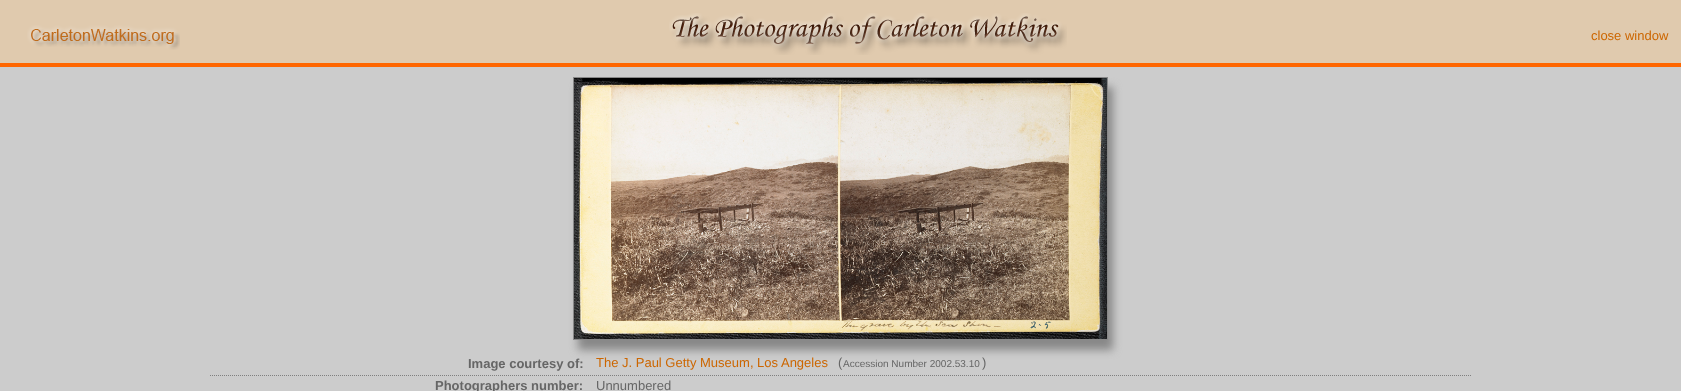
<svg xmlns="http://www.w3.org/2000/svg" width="1681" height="391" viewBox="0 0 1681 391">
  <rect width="100%" height="100%" fill="rgb(204,204,204)"/>
  <rect x="0" y="0" width="1681" height="63" fill="rgb(224,202,174)"/>
  <rect x="0" y="63" width="1681" height="4" fill="rgb(255,102,0)"/>
  <image x="27" y="25" width="153" height="25" href="pic1.png"/>
  <image x="669" y="13" width="398" height="42" href="pic2.png"/>
  <text x="1591" y="40" font-family="Liberation Sans" font-size="13" fill="rgb(204,102,0)">close window</text>
  <rect x="578" y="87" width="535" height="263" fill="rgb(136,136,136)" filter="blur(4px)"/>
  <rect x="573.5" y="77.5" width="534" height="262" fill="none" stroke="rgb(136,136,136)"/>
  <image x="574" y="78" width="533" height="261" href="pic3.png"/>
  <text x="468" y="368" font-family="Liberation Sans" font-size="13" font-weight="bold" fill="rgb(102,102,102)">Image courtesy of:</text>
  <text x="596" y="367" font-family="Liberation Sans" font-size="13" fill="rgb(204,102,0)">The J. Paul Getty Museum, Los Angeles</text>
  <text x="838" y="367" font-family="Liberation Sans" font-size="13" fill="rgb(102,102,102)">(</text>
  <text x="843" y="367" font-family="Liberation Sans" font-size="10" fill="rgb(102,102,102)">Accession Number 2002.53.10</text>
  <text x="982" y="367" font-family="Liberation Sans" font-size="13" fill="rgb(102,102,102)">)</text>
  <path d="M210 375.5H1471" fill="none" stroke="rgb(128,128,128)" stroke-dasharray="1 1"/>
  <text x="435" y="390" font-family="Liberation Sans" font-size="13" font-weight="bold" fill="rgb(102,102,102)">Photographers number:</text>
  <text x="596" y="390" font-family="Liberation Sans" font-size="13" fill="rgb(102,102,102)">Unnumbered</text>
</svg>
